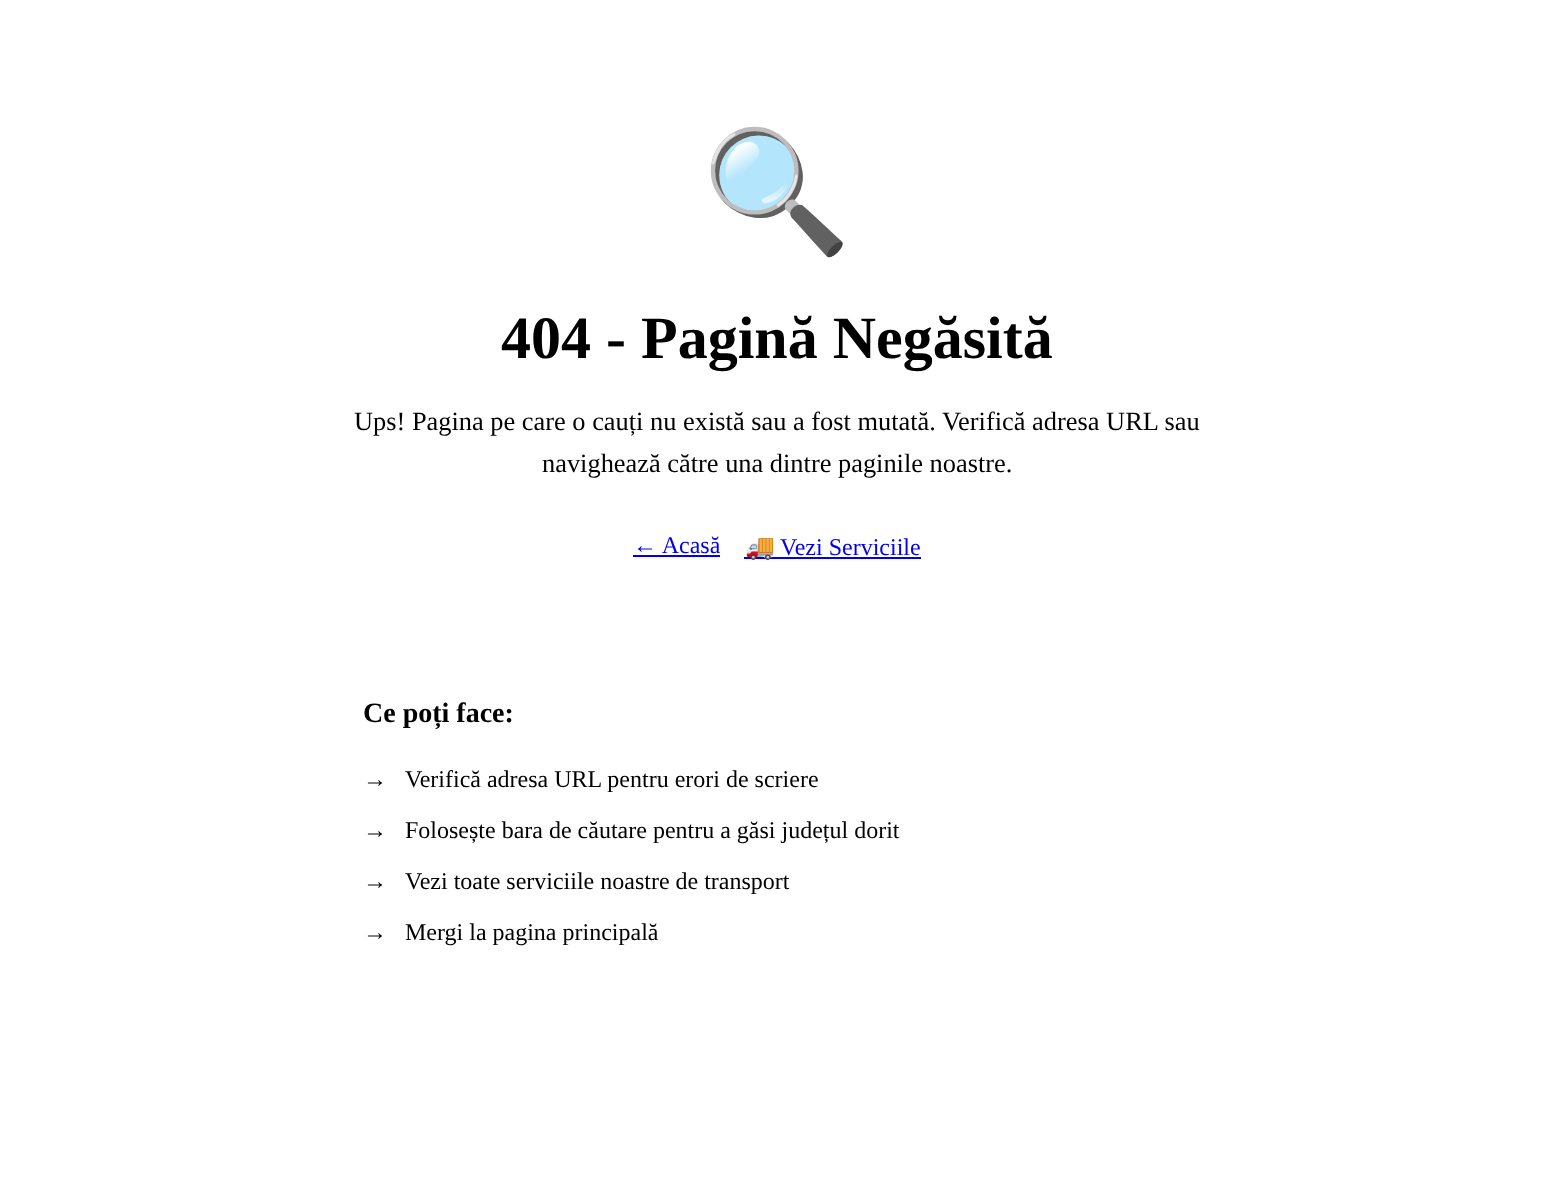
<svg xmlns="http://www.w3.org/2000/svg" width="1554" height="1204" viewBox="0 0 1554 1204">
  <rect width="100%" height="100%" fill="rgb(255,255,255)"/>
  <text x="702" y="233" font-family="Noto Color Emoji" font-size="120" fill="rgb(0,0,0)">🔍</text>
  <text x="501" y="358" font-family="Liberation Serif" font-size="60" font-weight="bold" fill="rgb(0,0,0)">404 - Pagină Negăsită</text>
  <g font-family="Liberation Serif" font-size="26.4" fill="rgb(0,0,0)">
    <text x="354" y="430">Ups! Pagina pe care o cauți nu există sau a fost mutată. Verifică adresa URL sau</text>
    <text x="542" y="472">navighează către una dintre paginile noastre.</text>
  </g>
  <text x="633" y="553" font-family="Liberation Serif" font-size="24" fill="rgb(0,0,238)">← Acasă</text>
  <rect x="633" y="555" width="87" height="2" fill="rgb(0,0,238)"/>
  <rect x="744" y="557" width="177" height="2" fill="rgb(0,0,238)"/>
  <text x="745" y="555" font-family="Noto Color Emoji" font-size="24" fill="rgb(0,0,238)">🚚</text>
  <text x="780" y="555" font-family="Liberation Serif" font-size="24" fill="rgb(0,0,238)">Vezi Serviciile</text>
  <text x="363" y="722" font-family="Liberation Serif" font-size="28" font-weight="bold" fill="rgb(0,0,0)">Ce poți face:</text>
  <text x="363" y="787" font-family="Liberation Serif" font-size="24" font-weight="bold" fill="rgb(0,0,0)">→</text>
  <text x="405" y="787" font-family="Liberation Serif" font-size="24" fill="rgb(0,0,0)">Verifică adresa URL pentru erori de scriere</text>
  <text x="363" y="838" font-family="Liberation Serif" font-size="24" font-weight="bold" fill="rgb(0,0,0)">→</text>
  <text x="405" y="838" font-family="Liberation Serif" font-size="24" fill="rgb(0,0,0)">Folosește bara de căutare pentru a găsi județul dorit</text>
  <text x="363" y="889" font-family="Liberation Serif" font-size="24" font-weight="bold" fill="rgb(0,0,0)">→</text>
  <text x="405" y="889" font-family="Liberation Serif" font-size="24" fill="rgb(0,0,0)">Vezi toate serviciile noastre de transport</text>
  <text x="363" y="940" font-family="Liberation Serif" font-size="24" font-weight="bold" fill="rgb(0,0,0)">→</text>
  <text x="405" y="940" font-family="Liberation Serif" font-size="24" fill="rgb(0,0,0)">Mergi la pagina principală</text>
</svg>
